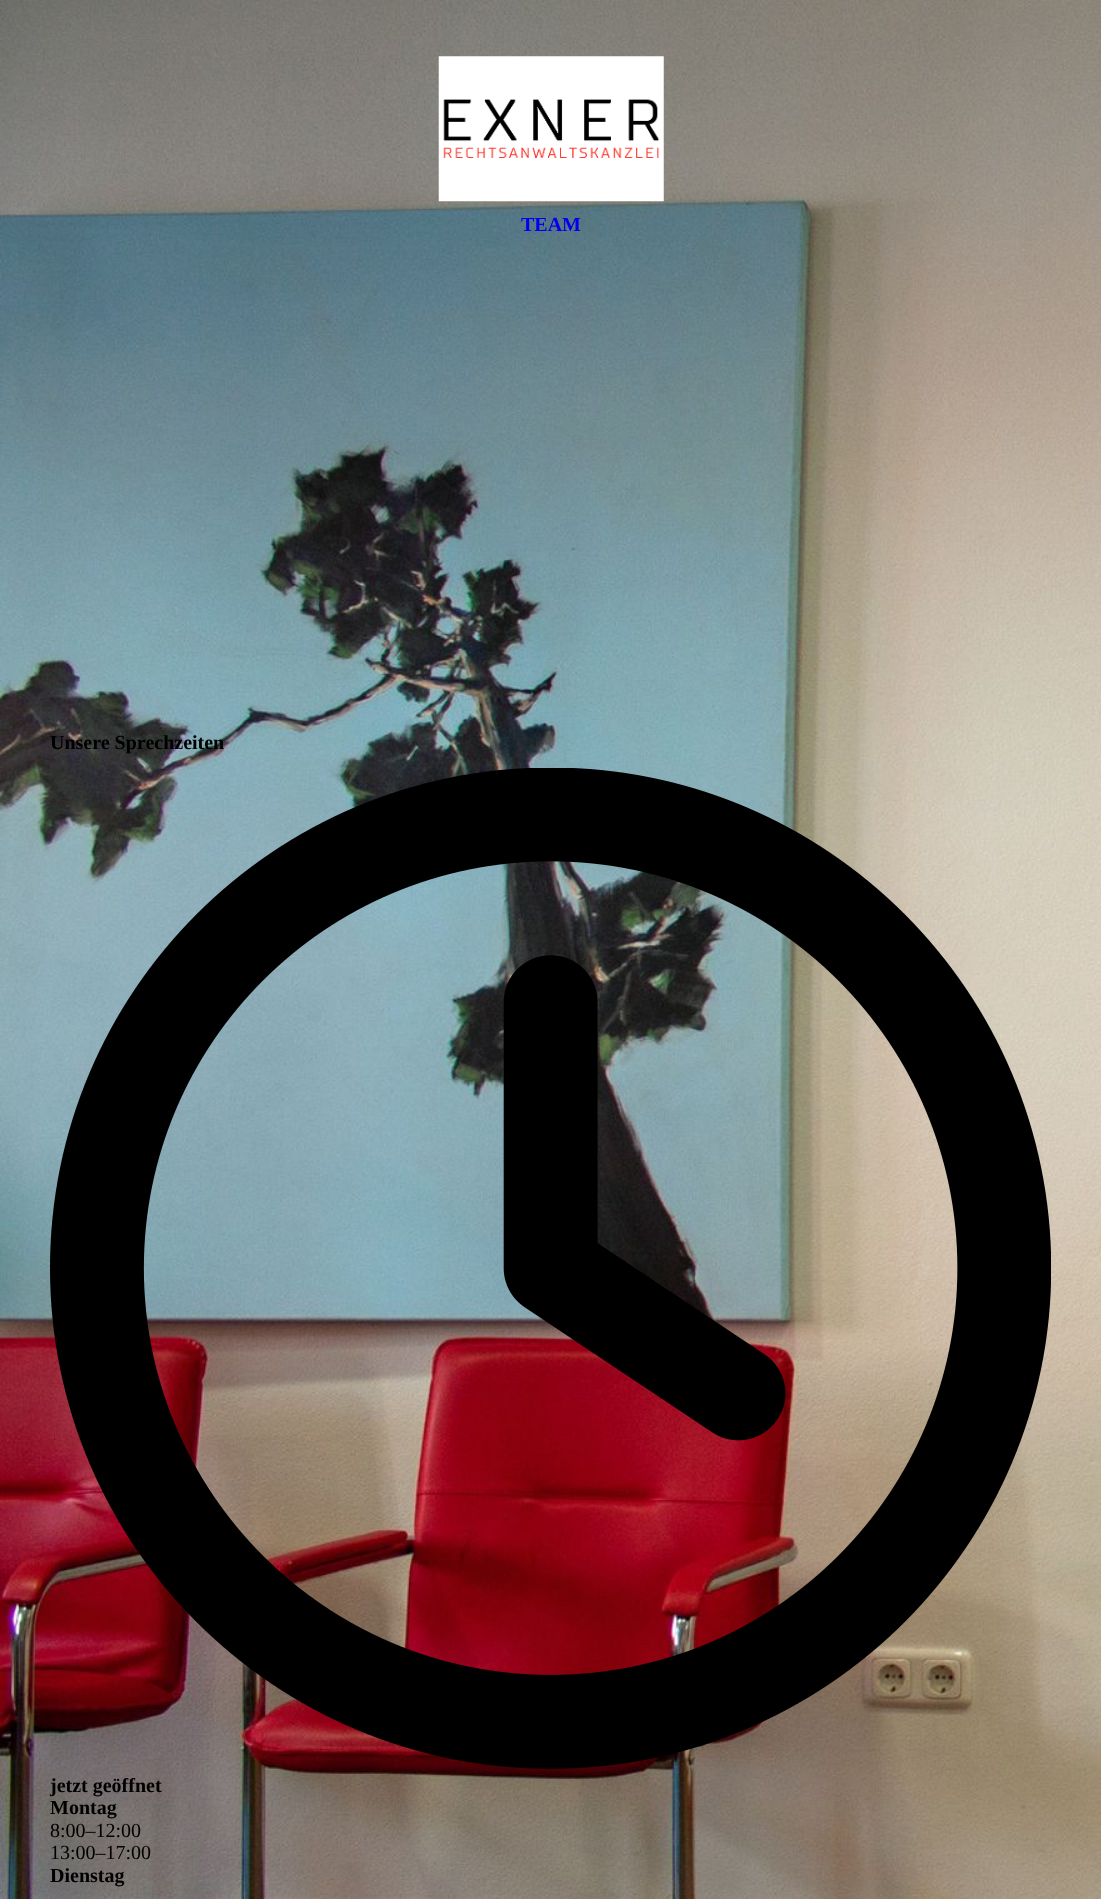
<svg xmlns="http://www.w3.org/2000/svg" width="1101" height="1899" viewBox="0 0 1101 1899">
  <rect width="100%" height="100%" fill="rgb(255,255,255)"/>
  <image x="0" y="0" width="1101" height="1899" href="pic1.png"/>
  <image x="438" y="56" width="226" height="146" href="pic2.png"/>
  <text x="521" y="231" font-family="Liberation Serif" font-size="20" font-weight="bold" fill="rgb(0,0,238)">TEAM</text>
  <text x="50" y="749" font-family="Liberation Serif" font-size="20" font-weight="bold" fill="rgb(0,0,0)">Unsere Sprechzeiten</text>
  <image x="50" y="768" width="1001" height="1001" href="pic3.png"/>
  <g font-family="Liberation Serif" font-size="20" font-weight="bold" fill="rgb(0,0,0)">
    <text>
      <tspan x="50" y="1792">jetzt geöffnet</tspan>
      <tspan x="50" y="1814">Montag</tspan>
    </text>
  </g>
  <g font-family="Liberation Serif" font-size="20" fill="rgb(0,0,0)">
    <text>
      <tspan x="50" y="1837">8:00–12:00</tspan>
      <tspan x="50" y="1859">13:00–17:00</tspan>
    </text>
  </g>
  <text x="50" y="1882" font-family="Liberation Serif" font-size="20" font-weight="bold" fill="rgb(0,0,0)">Dienstag</text>
</svg>
